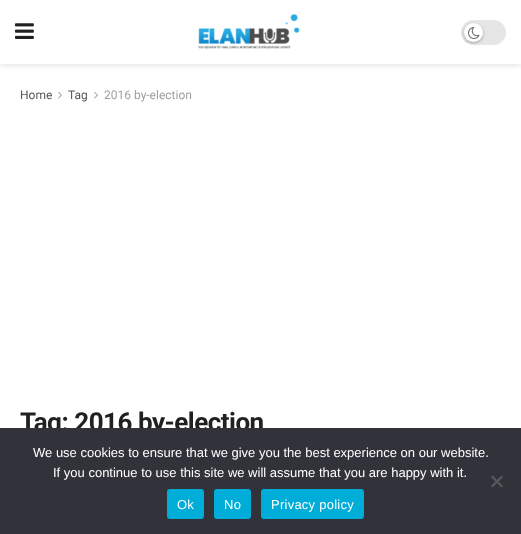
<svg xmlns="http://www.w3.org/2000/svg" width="521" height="534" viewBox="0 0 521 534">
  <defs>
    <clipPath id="clip1"><rect x="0" y="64" width="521" height="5"/></clipPath>
  </defs>
  <rect width="100%" height="100%" fill="rgb(255,255,255)"/>
  <g clip-path="url(#clip1)">
    <rect x="0" y="2" width="521" height="64" fill="rgba(0,0,0,0.1)" filter="blur(3px)"/>
  </g>
  <image x="15" y="23" width="19" height="16" href="pic1.png"/>
  <image x="198" y="14" width="102" height="35" href="pic2.png"/>
  <rect x="461" y="20" width="45" height="25" rx="12.5" fill="rgb(230,230,230)"/>
  <rect x="464" y="24" width="19" height="19" rx="9.5" fill="rgba(0,0,0,0.3)" filter="blur(1.5px)"/>
  <circle cx="473.5" cy="32.5" r="9.5" fill="rgb(255,255,255)"/>
  <image x="468" y="27" width="12" height="12" href="pic3.png"/>
  <text x="20" y="99" font-family="Roboto" font-size="12" fill="rgb(83,88,92)">Home</text>
  <image x="58" y="91" width="4" height="8" href="pic4.png"/>
  <text x="68" y="99" font-family="Roboto" font-size="12" fill="rgb(83,88,92)">Tag</text>
  <image x="94" y="91" width="4" height="8" href="pic4.png"/>
  <text x="104" y="99" font-family="Roboto" font-size="12" fill="rgb(160,160,160)">2016 by-election</text>
  <text x="20" y="431" font-family="Roboto" font-size="26" font-weight="bold" letter-spacing="-0.5" fill="rgb(33,33,33)">Tag: 2016 by-election</text>
  <rect x="0" y="428" width="521" height="106" fill="rgb(50,50,58)"/>
  <g font-family="Liberation Sans" font-size="13" fill="rgb(255,255,255)">
    <text x="33" y="457">We use cookies to ensure that we give you the best experience on our website.</text>
    <text x="53" y="477">If you continue to use this site we will assume that you are happy with it.</text>
  </g>
  <path d="M501.5 475.5L503 477L492.5 487.5L491 486Z" fill="rgb(89,89,93)"/>
  <path d="M491 477L492.5 475.5L503 486L501.5 487.5Z" fill="rgb(89,89,93)"/>
  <rect x="167" y="489" width="37" height="30" rx="3" fill="rgb(0,173,216)"/>
  <text x="177" y="509" font-family="Liberation Sans" font-size="13" letter-spacing="0.25" fill="rgb(255,255,255)">Ok</text>
  <rect x="214" y="489" width="37" height="30" rx="3" fill="rgb(0,173,216)"/>
  <text x="224" y="509" font-family="Liberation Sans" font-size="13" letter-spacing="0.25" fill="rgb(255,255,255)">No</text>
  <rect x="261" y="489" width="103" height="30" rx="3" fill="rgb(0,173,216)"/>
  <text x="271" y="509" font-family="Liberation Sans" font-size="13" letter-spacing="0.25" fill="rgb(255,255,255)">Privacy policy</text>
</svg>
